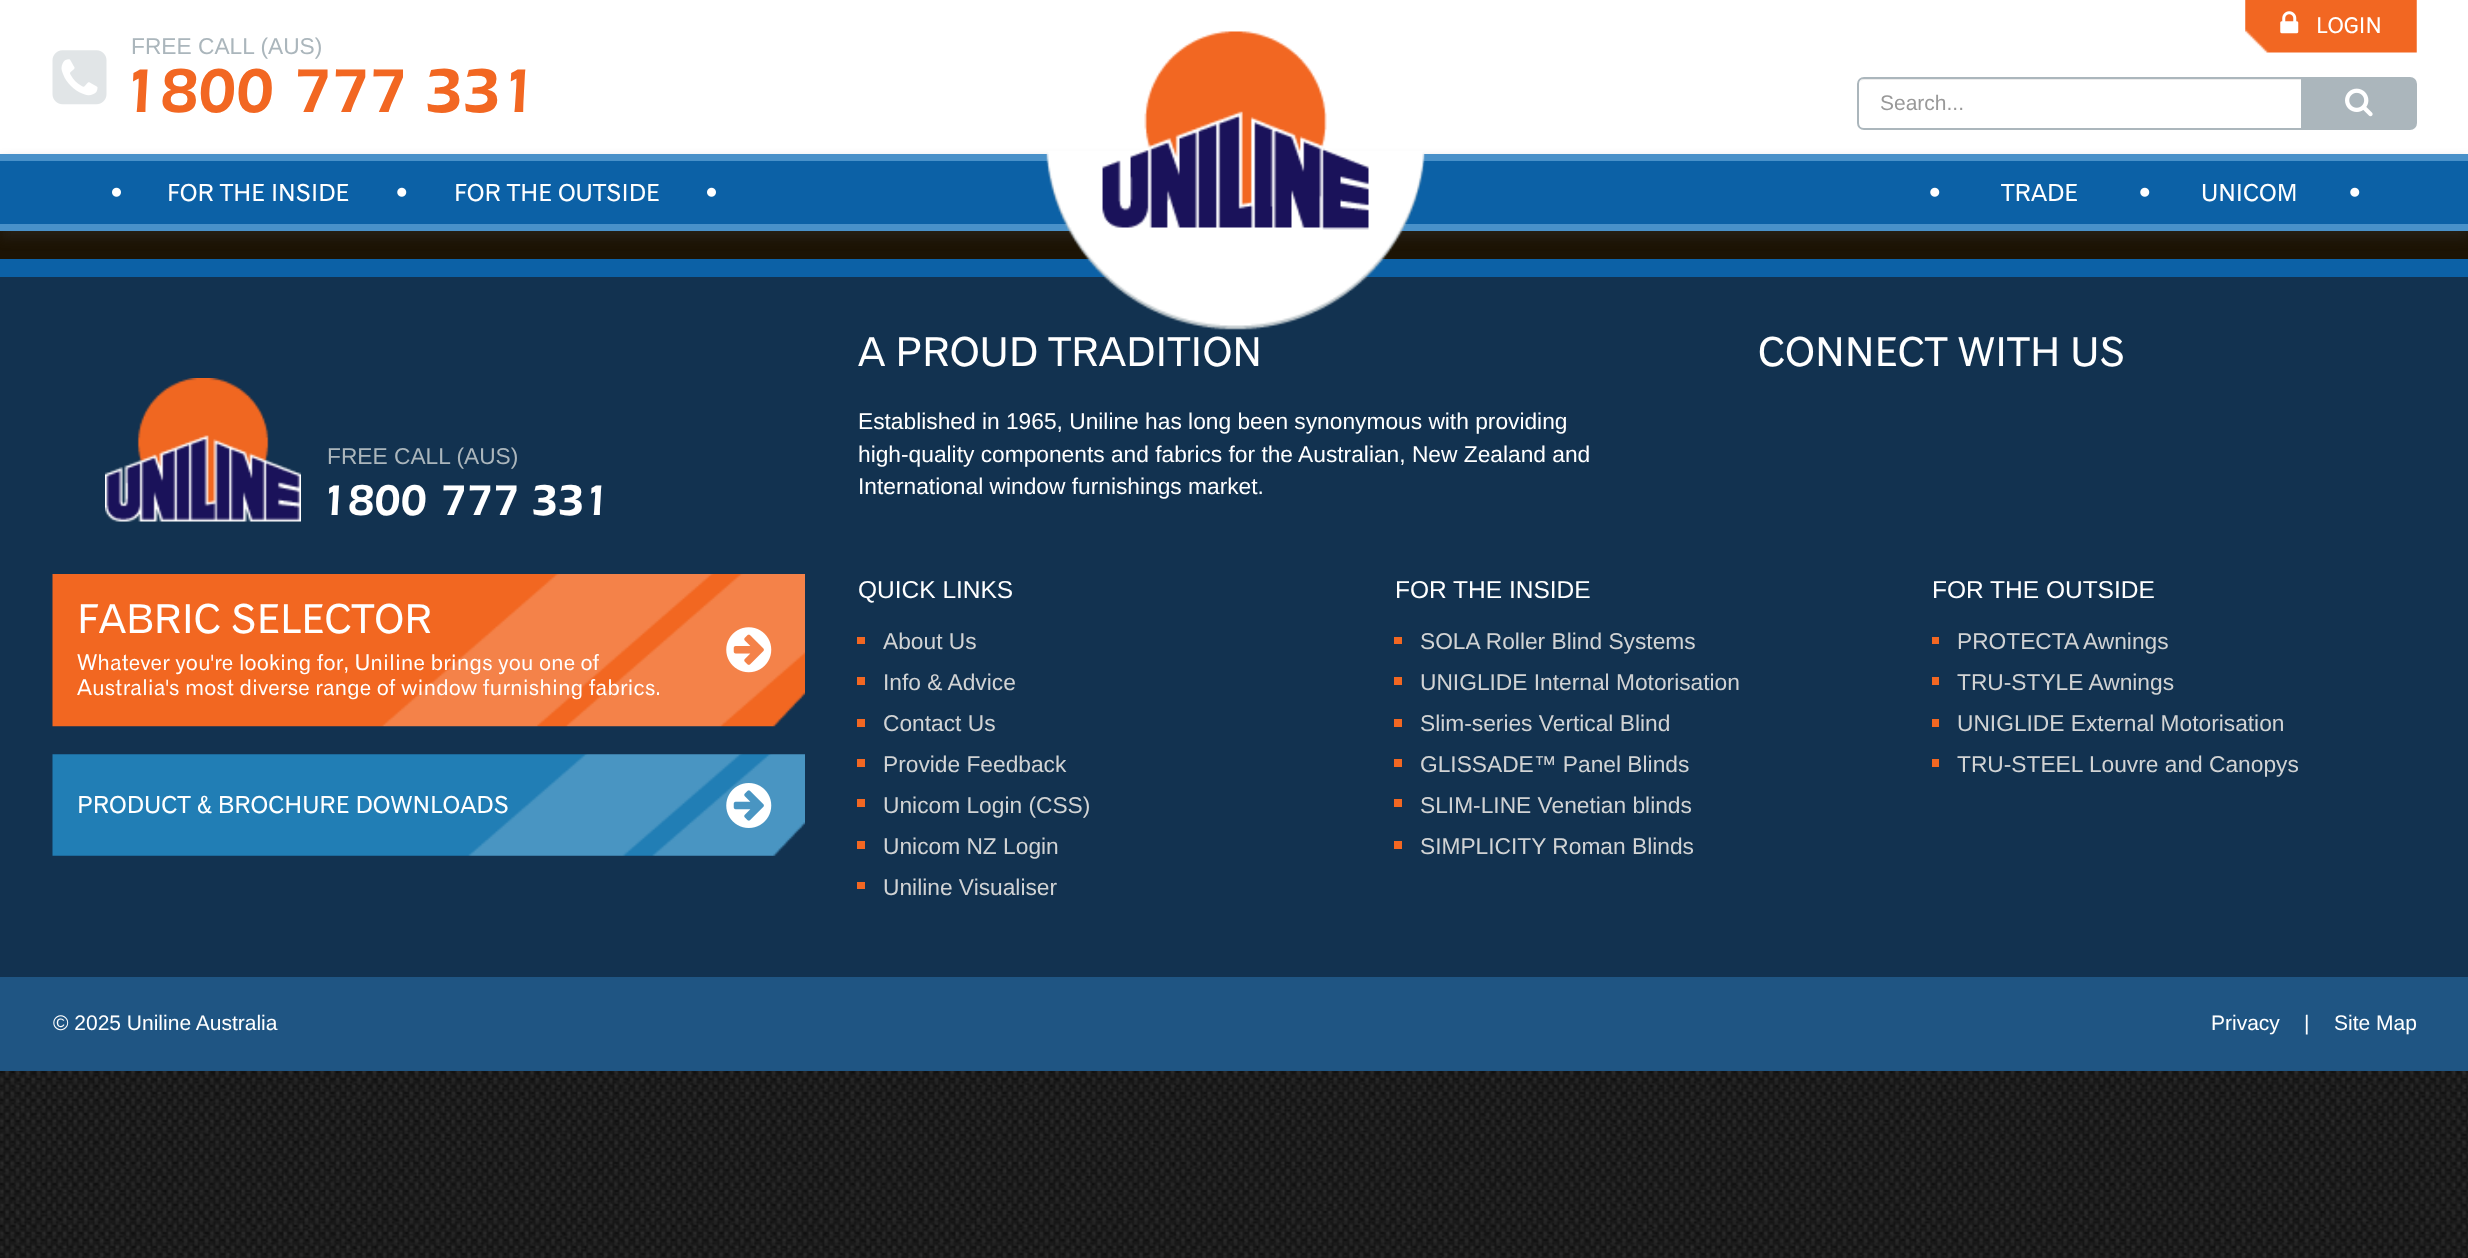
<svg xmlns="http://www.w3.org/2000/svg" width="2468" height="1258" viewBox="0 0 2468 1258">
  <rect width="100%" height="100%" fill="rgb(255,255,255)"/>
  <image x="0" y="1071" width="2468" height="187" href="pic1.png"/>
  <image x="2245" y="0" width="172" height="53" href="pic2.png"/>
  <image x="2280" y="11" width="19" height="23" href="pic3.png"/>
  <text x="2316" y="33" font-family="'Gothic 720'" font-size="21" fill="rgb(255,255,255)">LOGIN</text>
  <image x="52" y="50" width="55" height="55" href="pic4.png"/>
  <text x="131" y="54" font-family="Liberation Sans" font-size="22.75" fill="rgb(171,182,188)">FREE CALL (AUS)</text>
  <text x="123" y="112" font-family="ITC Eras" font-size="63" font-weight="600" font-style="italic" fill="rgb(242,103,34)">1800 777 331</text>
  <rect x="0" y="231" width="2468" height="28" fill="rgb(28,19,4)"/>
  <rect x="0" y="161" width="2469" height="77" fill="rgba(50,50,50,0.4)" filter="blur(6px)"/>
  <rect x="0" y="161" width="2468" height="63" fill="rgb(12,97,166)"/>
  <rect x="0" y="154" width="2468" height="7" fill="rgb(73,145,201)"/>
  <rect x="0" y="224" width="2468" height="7" fill="rgb(73,145,201)"/>
  <rect x="0" y="259" width="2468" height="18" fill="rgb(12,97,166)"/>
  <rect x="0" y="277" width="2468" height="700" fill="rgb(18,50,80)"/>
  <image x="1046" y="151" width="379" height="179" href="pic6.png"/>
  <image x="1102" y="31" width="267" height="199" href="pic5.png"/>
  <path d="M2302 78H2410C2413.5 78 2416 80.5 2416 84V123C2416 126.5 2413.5 129 2410 129H2302Z" fill="rgb(171,182,188)" stroke="rgb(171,182,188)" stroke-width="2"/>
  <path d="M1864 77H2303V130H1864C1860 130 1857 127 1857 123V84C1857 80 1860 77 1864 77Z" fill="rgb(255,255,255)"/>
  <path d="M1864 80H2301V79H1864C1862 79 1860 81 1859 83C1860 81 1862 80 1864 80Z" fill="rgb(236,236,236)"/>
  <path d="M1864 78H2302V129H1864C1860.5 129 1858 126.5 1858 123V84C1858 80.5 1860.5 78 1864 78Z" fill="none" stroke="rgb(171,182,188)" stroke-width="2"/>
  <text x="1880" y="110" font-family="Liberation Sans" font-size="21" fill="rgb(153,153,153)">Search...</text>
  <image x="2345" y="88" width="28" height="29" href="pic7.png"/>
  <image x="112" y="187" width="9" height="10" href="pic8.png"/>
  <text x="167" y="201" font-family="'Gothic 720'" font-size="22.75" fill="rgb(255,255,255)">FOR THE INSIDE</text>
  <image x="397" y="187" width="10" height="10" href="pic9.png"/>
  <text x="454" y="201" font-family="'Gothic 720'" font-size="22.75" fill="rgb(255,255,255)">FOR THE OUTSIDE</text>
  <image x="707" y="187" width="9" height="10" href="pic8.png"/>
  <image x="1930" y="187" width="10" height="10" href="pic10.png"/>
  <text x="2001" y="201" font-family="'Gothic 720'" font-size="22.75" fill="rgb(255,255,255)">TRADE</text>
  <image x="2140" y="187" width="10" height="10" href="pic9.png"/>
  <text x="2201" y="201" font-family="'Gothic 720'" font-size="22.75" fill="rgb(255,255,255)">UNICOM</text>
  <image x="2350" y="187" width="10" height="10" href="pic9.png"/>
  <text x="858" y="366" font-family="'Gothic 720'" font-size="38.5" fill="rgb(255,255,255)">A PROUD TRADITION</text>
  <g font-family="Liberation Sans" font-size="22.75" fill="rgb(255,255,255)">
    <text>
      <tspan x="858" y="429">Established in 1965, Uniline has long been synonymous with providing</tspan>
      <tspan x="858" y="462">high-quality components and fabrics for the Australian, New Zealand and</tspan>
      <tspan x="858" y="494">International window furnishings market.</tspan>
    </text>
  </g>
  <text x="1758" y="366" font-family="'Gothic 720'" font-size="38.5" fill="rgb(255,255,255)">CONNECT WITH US</text>
  <image x="105" y="378" width="196" height="144" href="pic11.png"/>
  <text x="327" y="464" font-family="Liberation Sans" font-size="22.75" fill="rgb(171,182,188)">FREE CALL (AUS)</text>
  <text x="322" y="515" font-family="ITC Eras" font-size="43.75" font-weight="600" font-style="italic" fill="rgb(255,255,255)">1800 777 331</text>
  <image x="52" y="574" width="753" height="153" href="pic12.png"/>
  <text x="77" y="633" font-family="'Gothic 720'" font-size="38.5" fill="rgb(255,255,255)">FABRIC SELECTOR</text>
  <g font-family="'Gothic 720'" font-size="21" fill="rgb(255,255,255)">
    <text>
      <tspan x="77" y="670">Whatever you're looking for, Uniline brings you one of</tspan>
      <tspan x="77" y="695">Australia's most diverse range of window furnishing fabrics.</tspan>
    </text>
  </g>
  <image x="726" y="627" width="46" height="46" href="pic13.png"/>
  <image x="52" y="754" width="753" height="102" href="pic14.png"/>
  <text x="77" y="813" font-family="'Gothic 720'" font-size="22.75" fill="rgb(255,255,255)">PRODUCT &amp; BROCHURE DOWNLOADS</text>
  <image x="726" y="783" width="46" height="45" href="pic15.png"/>
  <text x="858" y="598" font-family="Liberation Sans" font-size="24.5" fill="rgb(255,255,255)">QUICK LINKS</text>
  <rect x="857" y="637" width="8" height="7" fill="rgb(242,103,34)"/>
  <text x="883" y="649" font-family="Liberation Sans" font-size="22.75" fill="rgb(209,211,212)">About Us</text>
  <rect x="857" y="677" width="8" height="8" fill="rgb(242,103,34)"/>
  <text x="883" y="690" font-family="Liberation Sans" font-size="22.75" fill="rgb(209,211,212)">Info &amp; Advice</text>
  <rect x="857" y="719" width="8" height="8" fill="rgb(242,103,34)"/>
  <text x="883" y="731" font-family="Liberation Sans" font-size="22.75" fill="rgb(209,211,212)">Contact Us</text>
  <rect x="857" y="759" width="8" height="8" fill="rgb(242,103,34)"/>
  <text x="883" y="772" font-family="Liberation Sans" font-size="22.75" fill="rgb(209,211,212)">Provide Feedback</text>
  <rect x="857" y="799" width="8" height="8" fill="rgb(242,103,34)"/>
  <text x="883" y="813" font-family="Liberation Sans" font-size="22.75" fill="rgb(209,211,212)">Unicom Login (CSS)</text>
  <rect x="857" y="841" width="8" height="8" fill="rgb(242,103,34)"/>
  <text x="883" y="854" font-family="Liberation Sans" font-size="22.75" fill="rgb(209,211,212)">Unicom NZ Login</text>
  <rect x="857" y="882" width="8" height="7" fill="rgb(242,103,34)"/>
  <text x="883" y="895" font-family="Liberation Sans" font-size="22.75" fill="rgb(209,211,212)">Uniline Visualiser</text>
  <text x="1395" y="598" font-family="Liberation Sans" font-size="24.5" fill="rgb(255,255,255)">FOR THE INSIDE</text>
  <rect x="1394" y="637" width="8" height="7" fill="rgb(242,103,34)"/>
  <text x="1420" y="649" font-family="Liberation Sans" font-size="22.75" fill="rgb(209,211,212)">SOLA Roller Blind Systems</text>
  <rect x="1394" y="677" width="8" height="8" fill="rgb(242,103,34)"/>
  <text x="1420" y="690" font-family="Liberation Sans" font-size="22.75" fill="rgb(209,211,212)">UNIGLIDE Internal Motorisation</text>
  <rect x="1394" y="719" width="8" height="8" fill="rgb(242,103,34)"/>
  <text x="1420" y="731" font-family="Liberation Sans" font-size="22.75" fill="rgb(209,211,212)">Slim-series Vertical Blind</text>
  <rect x="1394" y="759" width="8" height="8" fill="rgb(242,103,34)"/>
  <text x="1420" y="772" font-family="Liberation Sans" font-size="22.75" fill="rgb(209,211,212)">GLISSADE™ Panel Blinds</text>
  <rect x="1394" y="799" width="8" height="8" fill="rgb(242,103,34)"/>
  <text x="1420" y="813" font-family="Liberation Sans" font-size="22.75" fill="rgb(209,211,212)">SLIM-LINE Venetian blinds</text>
  <rect x="1394" y="841" width="8" height="8" fill="rgb(242,103,34)"/>
  <text x="1420" y="854" font-family="Liberation Sans" font-size="22.75" fill="rgb(209,211,212)">SIMPLICITY Roman Blinds</text>
  <text x="1932" y="598" font-family="Liberation Sans" font-size="24.5" fill="rgb(255,255,255)">FOR THE OUTSIDE</text>
  <rect x="1932" y="637" width="7" height="7" fill="rgb(242,103,34)"/>
  <text x="1957" y="649" font-family="Liberation Sans" font-size="22.75" fill="rgb(209,211,212)">PROTECTA Awnings</text>
  <rect x="1932" y="677" width="7" height="8" fill="rgb(242,103,34)"/>
  <text x="1957" y="690" font-family="Liberation Sans" font-size="22.75" fill="rgb(209,211,212)">TRU-STYLE Awnings</text>
  <rect x="1932" y="719" width="7" height="8" fill="rgb(242,103,34)"/>
  <text x="1957" y="731" font-family="Liberation Sans" font-size="22.75" fill="rgb(209,211,212)">UNIGLIDE External Motorisation</text>
  <rect x="1932" y="759" width="7" height="8" fill="rgb(242,103,34)"/>
  <text x="1957" y="772" font-family="Liberation Sans" font-size="22.75" fill="rgb(209,211,212)">TRU-STEEL Louvre and Canopys</text>
  <rect x="0" y="977" width="2468" height="94" fill="rgb(31,85,131)"/>
  <g font-family="Liberation Sans" font-size="21" fill="rgb(255,255,255)">
    <text x="53" y="1030">© 2025 Uniline Australia</text>
    <text x="2211" y="1030">Privacy</text>
    <text x="2304" y="1030">|</text>
    <text x="2334" y="1030">Site Map</text>
  </g>
</svg>
